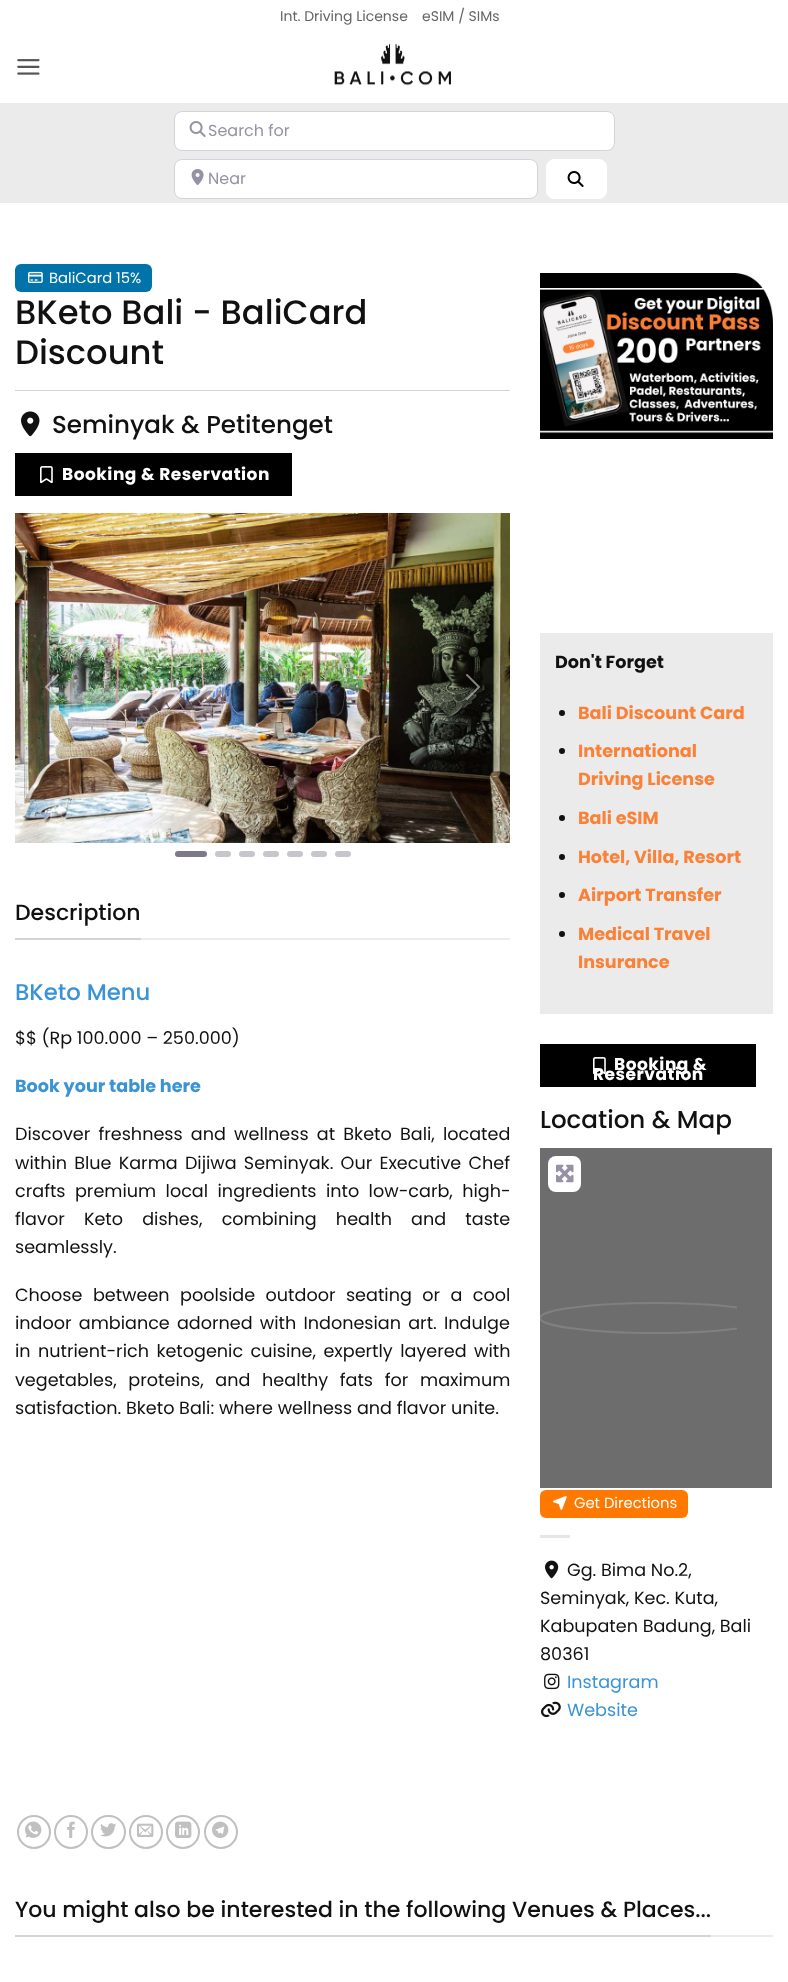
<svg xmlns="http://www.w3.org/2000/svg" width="788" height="1982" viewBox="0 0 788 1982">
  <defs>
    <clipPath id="clip1"><rect x="540" y="1148" width="233" height="340"/></clipPath>
  </defs>
  <rect width="100%" height="100%" fill="rgb(255,255,255)"/>
  <g font-family="Poppins" font-size="14" fill="rgb(101,101,101)">
    <text x="280" y="21">Int. Driving License</text>
    <text x="422" y="21">eSIM / SIMs</text>
  </g>
  <image x="17" y="59" width="23" height="16" href="pic1.png"/>
  <image x="334" y="43" width="117" height="43" href="pic2.png"/>
  <rect x="0" y="103" width="788" height="100" fill="rgb(235,235,235)"/>
  <rect x="174.5" y="111.5" width="440" height="39" rx="7.5" fill="rgb(255,255,255)" stroke="rgb(213,210,220)"/>
  <image x="189" y="121" width="17" height="16" href="pic3.png"/>
  <text x="208" y="136" font-family="Poppins" font-size="16" fill="rgb(150,145,164)">Search for</text>
  <rect x="174.5" y="159.5" width="363" height="39" rx="7.5" fill="rgb(255,255,255)" stroke="rgb(213,210,220)"/>
  <image x="191" y="169" width="13" height="16" href="pic4.png"/>
  <text x="208" y="184" font-family="Poppins" font-size="16" fill="rgb(150,145,164)">Near</text>
  <rect x="546.5" y="159.5" width="60" height="39" rx="7.5" fill="rgb(255,255,255)" stroke="rgb(255,255,255)"/>
  <image x="567" y="171" width="17" height="16" href="pic5.png"/>
  <rect x="15" y="264" width="137" height="28" rx="6" fill="rgb(0,115,170)"/>
  <image x="28" y="271" width="15" height="12" href="pic6.png"/>
  <text x="49" y="283" font-family="Poppins" font-size="14.75" fill="rgb(255,255,255)">BaliCard 15%</text>
  <g font-family="Poppins" font-size="33.75" font-weight="500" fill="rgb(17,17,17)">
    <text>
      <tspan x="15" y="324">BKeto Bali - BaliCard</tspan>
      <tspan x="15" y="364">Discount</tspan>
    </text>
  </g>
  <rect x="15" y="390" width="495" height="1" fill="rgb(211,211,211)"/>
  <image x="21" y="411" width="19" height="26" href="pic7.png"/>
  <text x="52" y="433" font-family="Poppins" font-size="24.6" font-weight="500" fill="rgb(17,17,17)">Seminyak &amp; Petitenget</text>
  <rect x="15" y="453" width="277" height="43" fill="rgb(0,0,0)"/>
  <image x="40" y="466" width="13" height="18" href="pic8.png"/>
  <text x="62" y="480" font-family="Poppins" font-size="17" font-weight="bold" letter-spacing="0.5" fill="rgb(255,255,255)">Booking &amp; Reservation</text>
  <image x="15" y="513" width="495" height="330" href="pic9.png"/>
  <image x="45" y="674" width="14" height="26" href="pic10.png"/>
  <image x="466" y="674" width="14" height="26" href="pic11.png"/>
  <rect x="175" y="851" width="32" height="6" rx="3" fill="rgb(125,121,137)"/>
  <rect x="215" y="851" width="16" height="6" rx="3" fill="rgb(199,198,204)"/>
  <rect x="239" y="851" width="16" height="6" rx="3" fill="rgb(199,198,204)"/>
  <rect x="263" y="851" width="16" height="6" rx="3" fill="rgb(199,198,204)"/>
  <rect x="287" y="851" width="16" height="6" rx="3" fill="rgb(199,198,204)"/>
  <rect x="311" y="851" width="16" height="6" rx="3" fill="rgb(199,198,204)"/>
  <rect x="335" y="851" width="16" height="6" rx="3" fill="rgb(199,198,204)"/>
  <rect x="141" y="938" width="369" height="2" fill="rgb(236,236,236)"/>
  <rect x="15" y="938" width="126" height="2" fill="rgb(212,212,212)"/>
  <text x="15" y="920" font-family="Poppins" font-size="22" font-weight="500" fill="rgb(17,17,17)">Description</text>
  <text x="15" y="1000" font-family="Poppins" font-size="22.75" font-weight="500" fill="rgb(57,147,213)">BKeto Menu</text>
  <text x="15" y="1044" font-family="Poppins" font-size="17.6" fill="rgb(17,17,17)">$$ (Rp 100.000 – 250.000)</text>
  <text x="15" y="1092" font-family="Poppins" font-size="17.6" font-weight="bold" fill="rgb(57,147,213)">Book your table here</text>
  <g font-family="Poppins" font-size="17.6" fill="rgb(17,17,17)">
    <text>
      <tspan x="15" y="1140" word-spacing="3.5">Discover freshness and wellness at Bketo Bali, located</tspan>
      <tspan x="15" y="1169" word-spacing="2.5">within Blue Karma Dijiwa Seminyak. Our Executive Chef</tspan>
      <tspan x="15" y="1197" word-spacing="4.75">crafts premium local ingredients into low-carb, high-</tspan>
      <tspan x="15" y="1225" word-spacing="14.5">flavor Keto dishes, combining health and taste</tspan>
      <tspan x="15" y="1253">seamlessly.</tspan>
    </text>
    <text>
      <tspan x="15" y="1301" word-spacing="5.75">Choose between poolside outdoor seating or a cool</tspan>
      <tspan x="15" y="1329" word-spacing="2.5">indoor ambiance adorned with Indonesian art. Indulge</tspan>
      <tspan x="15" y="1357" word-spacing="2.75">in nutrient-rich ketogenic cuisine, expertly layered with</tspan>
      <tspan x="15" y="1386" word-spacing="7">vegetables, proteins, and healthy fats for maximum</tspan>
      <tspan x="15" y="1414">satisfaction. Bketo Bali: where wellness and flavor unite.</tspan>
    </text>
  </g>
  <image x="540" y="273" width="233" height="166" href="pic12.png"/>
  <rect x="540" y="633" width="233" height="381" fill="rgb(235,235,235)"/>
  <text x="555" y="668" font-family="Poppins" font-size="17.6" font-weight="bold" fill="rgb(17,17,17)">Don't Forget</text>
  <circle cx="562" cy="713" r="3" fill="rgb(17,17,17)"/>
  <text x="578" y="719" font-family="Poppins" font-size="17.6" font-weight="bold" fill="rgb(249,130,56)">Bali Discount Card</text>
  <circle cx="562" cy="751" r="3" fill="rgb(17,17,17)"/>
  <g font-family="Poppins" font-size="17.6" font-weight="bold" fill="rgb(249,130,56)">
    <text>
      <tspan x="578" y="757">International</tspan>
      <tspan x="578" y="785">Driving License</tspan>
    </text>
  </g>
  <circle cx="562" cy="818" r="3" fill="rgb(17,17,17)"/>
  <text x="578" y="824" font-family="Poppins" font-size="17.6" font-weight="bold" fill="rgb(249,130,56)">Bali eSIM</text>
  <circle cx="562" cy="857" r="3" fill="rgb(17,17,17)"/>
  <text x="578" y="863" font-family="Poppins" font-size="17.6" font-weight="bold" fill="rgb(249,130,56)">Hotel, Villa, Resort</text>
  <circle cx="562" cy="895" r="3" fill="rgb(17,17,17)"/>
  <text x="578" y="901" font-family="Poppins" font-size="17.6" font-weight="bold" fill="rgb(249,130,56)">Airport Transfer</text>
  <circle cx="562" cy="934" r="3" fill="rgb(17,17,17)"/>
  <g font-family="Poppins" font-size="17.6" font-weight="bold" fill="rgb(249,130,56)">
    <text>
      <tspan x="578" y="940">Medical Travel</tspan>
      <tspan x="578" y="968">Insurance</tspan>
    </text>
  </g>
  <rect x="540" y="1044" width="216" height="43" fill="rgb(0,0,0)"/>
  <image x="593" y="1057" width="13" height="18" href="pic8.png"/>
  <g font-family="Poppins" font-size="17" font-weight="bold" letter-spacing="0.5" fill="rgb(255,255,255)">
    <text x="614" y="1070">Booking &amp;</text>
    <text x="593" y="1080">Reservation</text>
  </g>
  <text x="540" y="1128" font-family="Poppins" font-size="24.6" font-weight="500" fill="rgb(17,17,17)">Location &amp; Map</text>
  <rect x="540" y="1148" width="232" height="340" fill="rgb(109,109,109)"/>
  <g clip-path="url(#clip1)">
    <path d="M737 1328.5C715.5 1331.5 686 1333 655.5 1333C625 1333 595.5 1331.5 574 1328.5C552 1326 540 1322 540 1318C540 1314 552 1310 574 1307.5C595.5 1304.5 625 1303 655.5 1303C686 1303 715.5 1304.5 737 1307.5" fill="none" stroke="rgb(128,128,128)" stroke-width="2"/>
  </g>
  <rect x="548" y="1156" width="33" height="36" rx="8" fill="rgb(255,255,255)"/>
  <image x="556" y="1164" width="18" height="19" href="pic13.png"/>
  <rect x="540" y="1490" width="148" height="28" rx="6" fill="rgb(255,121,0)"/>
  <image x="553" y="1496" width="14" height="14" href="pic14.png"/>
  <text x="574" y="1508" font-family="Poppins" font-size="14.75" fill="rgb(255,255,255)">Get Directions</text>
  <rect x="540" y="1535" width="30" height="3" fill="rgb(230,230,230)"/>
  <image x="545" y="1560" width="14" height="19" href="pic15.png"/>
  <g font-family="Poppins" font-size="17.6" fill="rgb(17,17,17)">
    <text x="567" y="1576">Gg. Bima No.2,</text>
    <text>
      <tspan x="540" y="1604">Seminyak, Kec. Kuta,</tspan>
      <tspan x="540" y="1632">Kabupaten Badung, Bali</tspan>
      <tspan x="540" y="1660">80361</tspan>
    </text>
  </g>
  <image x="544" y="1673" width="16" height="17" href="pic16.png"/>
  <text x="567" y="1688" font-family="Poppins" font-size="17.6" fill="rgb(57,147,213)">Instagram</text>
  <image x="541" y="1701" width="20" height="17" href="pic17.png"/>
  <text x="567" y="1716" font-family="Poppins" font-size="17.6" fill="rgb(57,147,213)">Website</text>
  <circle cx="34" cy="1832" r="16" fill="none" stroke="rgb(192,192,192)" stroke-width="2"/>
  <image x="25" y="1821" width="17" height="17" href="pic18.png"/>
  <circle cx="71" cy="1832" r="16" fill="none" stroke="rgb(192,192,192)" stroke-width="2"/>
  <image x="67" y="1821" width="8" height="17" href="pic19.png"/>
  <rect x="92" y="1816" width="33" height="32" rx="16" fill="none" stroke="rgb(192,192,192)" stroke-width="2"/>
  <image x="100" y="1823" width="16" height="14" href="pic20.png"/>
  <circle cx="146" cy="1832" r="16" fill="none" stroke="rgb(192,192,192)" stroke-width="2"/>
  <image x="137" y="1823" width="17" height="14" href="pic21.png"/>
  <circle cx="183" cy="1832" r="16" fill="none" stroke="rgb(192,192,192)" stroke-width="2"/>
  <image x="175" y="1821" width="17" height="17" href="pic22.png"/>
  <circle cx="221" cy="1832" r="16" fill="none" stroke="rgb(192,192,192)" stroke-width="2"/>
  <image x="212" y="1821" width="17" height="17" href="pic23.png"/>
  <rect x="711" y="1935" width="62" height="2" fill="rgb(236,236,236)"/>
  <rect x="15" y="1935" width="696" height="2" fill="rgb(212,212,212)"/>
  <text x="15" y="1917" font-family="Poppins" font-size="22" font-weight="500" fill="rgb(17,17,17)">You might also be interested in the following Venues &amp; Places...</text>
</svg>
